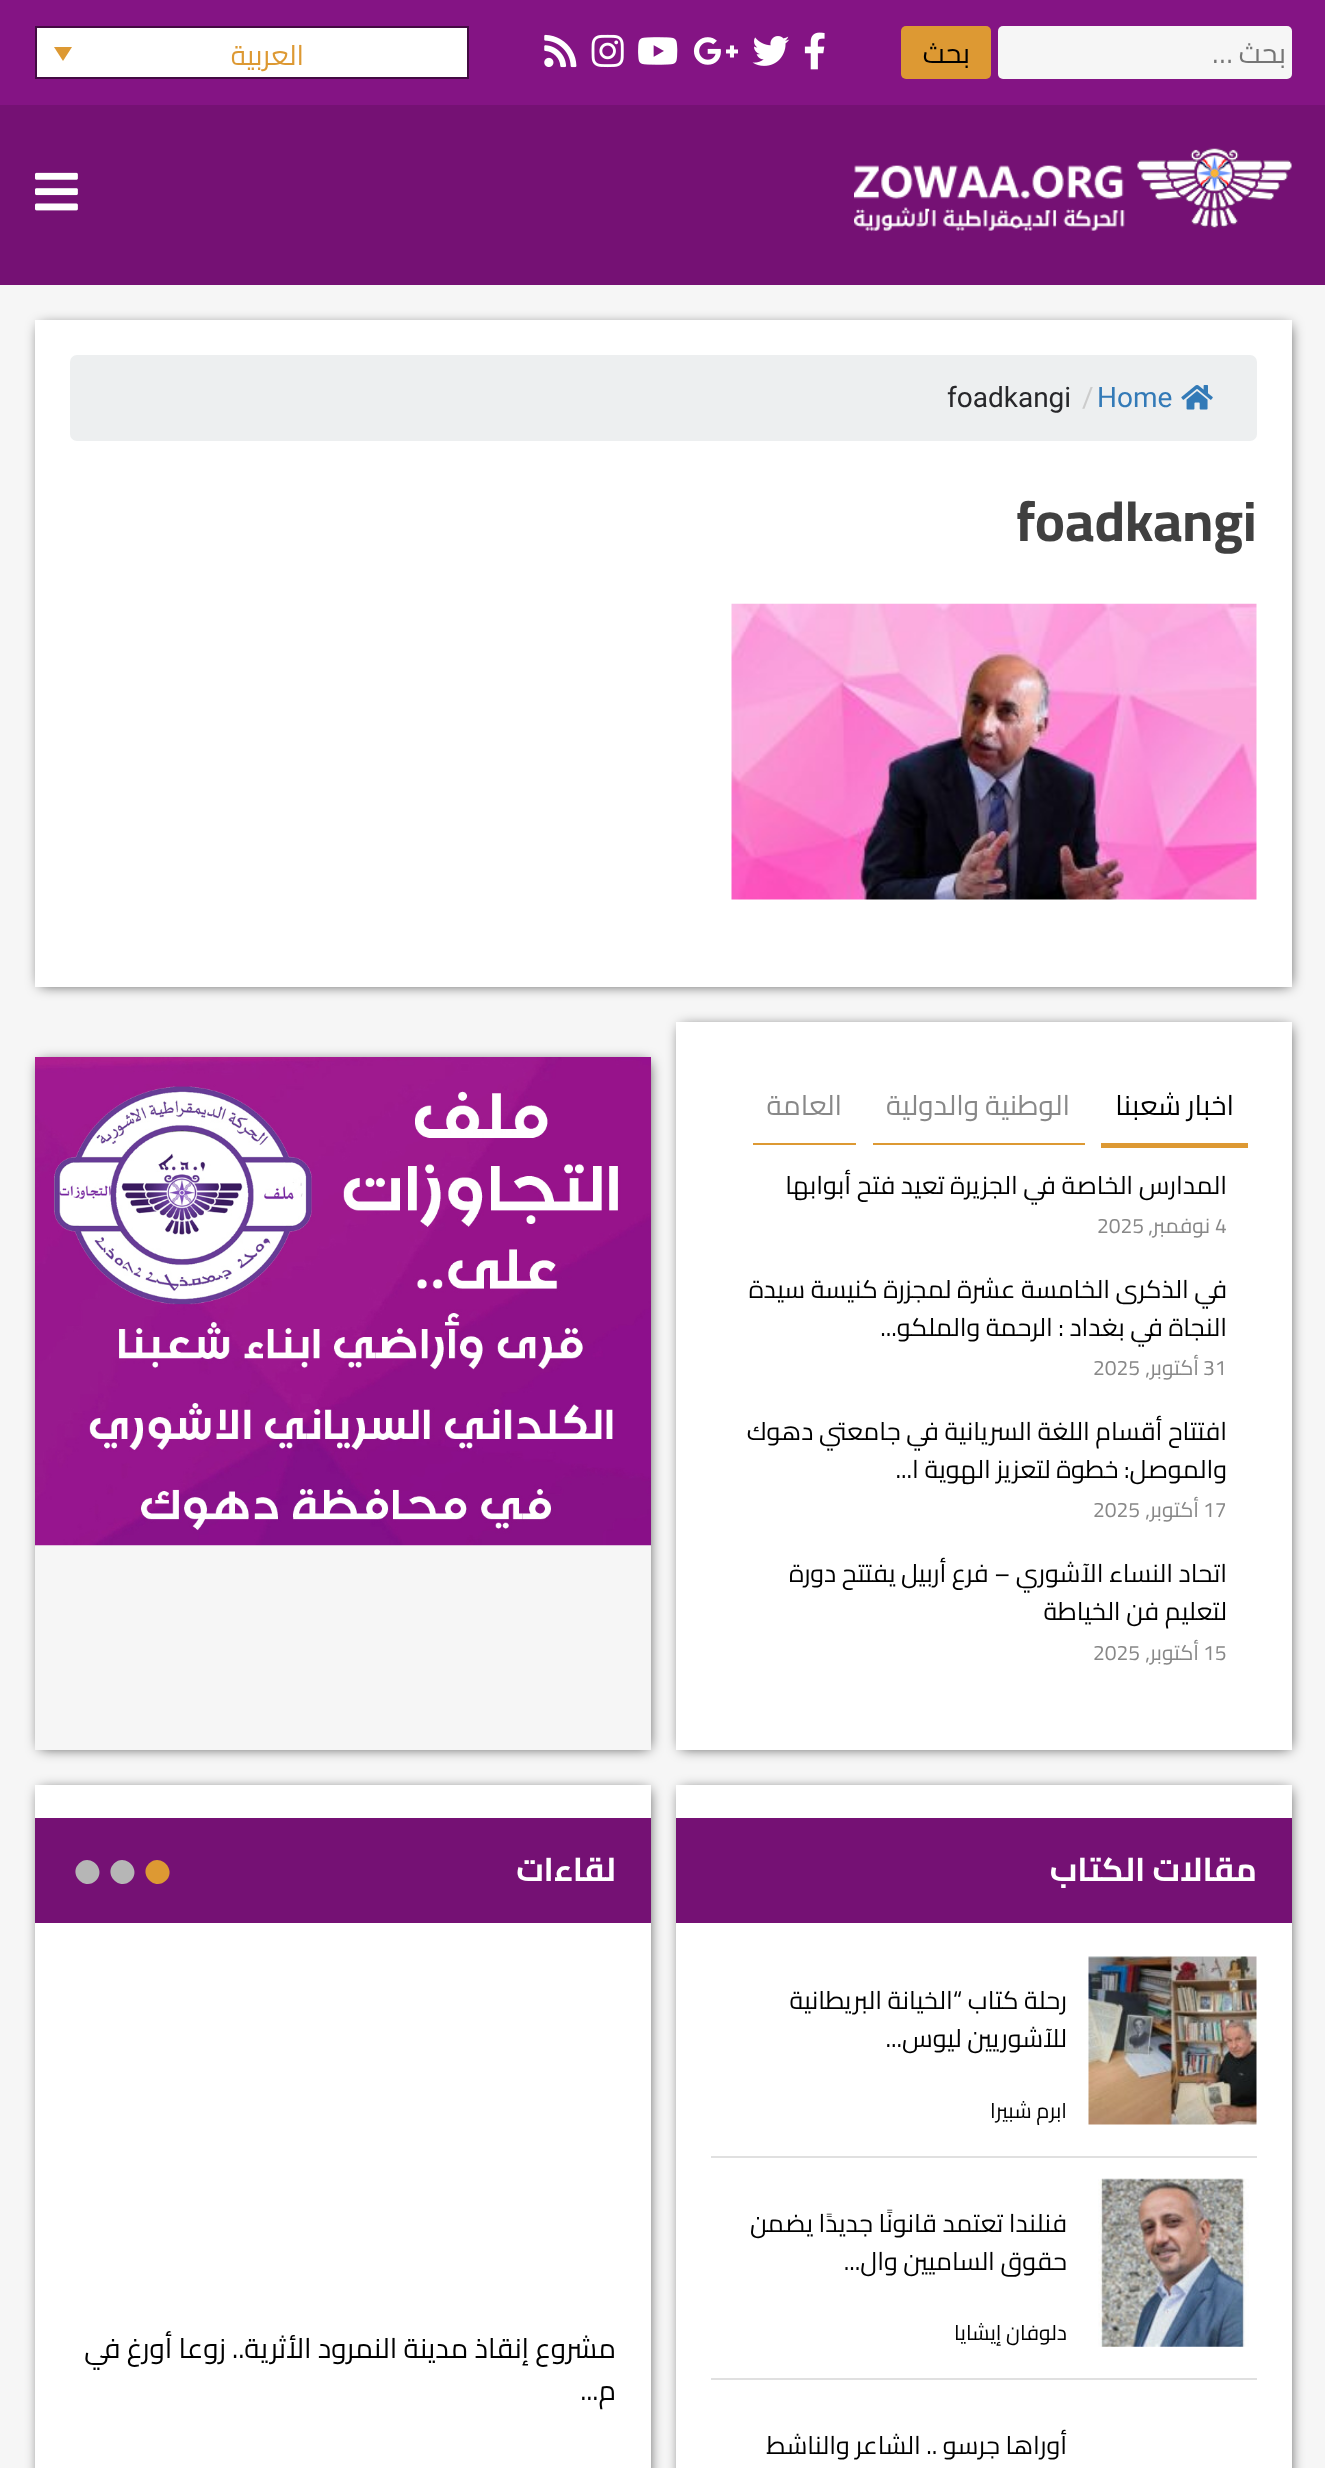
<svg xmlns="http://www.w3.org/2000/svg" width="1325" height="2468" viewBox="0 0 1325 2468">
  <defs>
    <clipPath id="clip1"><path d="M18 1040H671V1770H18ZM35 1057H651V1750H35Z" clip-rule="evenodd"/></clipPath>
  </defs>
  <rect width="100%" height="100%" fill="rgb(246,246,246)"/>
  <rect x="0" y="0" width="1325" height="105" fill="rgb(132,20,132)"/>
  <rect x="998" y="26" width="294" height="53" rx="5" fill="rgb(246,246,246)"/>
  <text x="1286" y="63" font-family="Cairo" font-size="28" direction="rtl" fill="rgb(117,117,117)">بحث …</text>
  <rect x="901" y="26" width="90" height="53" rx="5" fill="rgb(221,153,51)"/>
  <text x="970" y="63" font-family="Cairo" font-size="28" direction="rtl" fill="rgb(0,0,0)">بحث</text>
  <image x="804" y="32" width="21" height="38" href="pic1.png"/>
  <image x="752" y="36" width="38" height="30" href="pic2.png"/>
  <image x="693" y="37" width="45" height="28" href="pic3.png"/>
  <image x="638" y="37" width="40" height="28" href="pic4.png"/>
  <image x="591" y="34" width="33" height="34" href="pic5.png"/>
  <image x="544" y="34" width="33" height="34" href="pic6.png"/>
  <rect x="36" y="27" width="432" height="51" fill="rgb(255,255,255)" stroke="rgb(67,10,66)" stroke-width="2"/>
  <text x="304" y="65" font-family="Cairo" font-size="28" direction="rtl" fill="rgb(221,153,51)">العربية</text>
  <path d="M54 47H72L63 61Z" fill="rgb(221,153,51)"/>
  <rect x="0" y="105" width="1325" height="180" fill="rgb(117,17,116)"/>
  <image x="854" y="148" width="438" height="83" href="pic7.png"/>
  <image x="35" y="172" width="43" height="39" href="pic8.png"/>
  <rect x="40" y="326" width="1250" height="659" fill="rgba(0,0,0,0.75)" filter="blur(7px)"/>
  <rect x="35" y="320" width="1257" height="667" fill="rgb(255,255,255)"/>
  <rect x="70" y="355" width="1187" height="86" rx="7" fill="rgb(237,239,240)"/>
  <image x="1181" y="385" width="32" height="25" href="pic9.png"/>
  <text x="1097" y="407" font-family="Roboto" font-size="28" fill="rgb(51,122,183)">Home</text>
  <text x="1082" y="407" font-family="Roboto" font-size="28" fill="rgb(204,204,204)">/</text>
  <text x="947" y="407" font-family="Roboto" font-size="28" fill="rgb(39,39,42)">foadkangi</text>
  <text x="1016" y="541" font-family="Cairo" font-size="56" font-weight="bold" fill="rgb(64,64,64)">foadkangi</text>
  <image x="731" y="603" width="526" height="297" href="pic10.png"/>
  <rect x="681" y="1027" width="609" height="721" fill="rgba(0,0,0,0.75)" filter="blur(7px)"/>
  <rect x="676" y="1022" width="616" height="728" fill="rgb(255,255,255)"/>
  <rect x="1101" y="1143" width="147" height="5" fill="rgb(221,153,51)"/>
  <text x="1234" y="1115" font-family="Cairo" font-size="28" direction="rtl" fill="rgb(0,0,0)">اخبار شعبنا</text>
  <rect x="873" y="1143" width="212" height="2" fill="rgb(221,153,51)"/>
  <text x="1070" y="1115" font-family="Cairo" font-size="28" direction="rtl" fill="rgb(136,136,136)">الوطنية والدولية</text>
  <rect x="753" y="1143" width="103" height="2" fill="rgb(221,153,51)"/>
  <text x="842" y="1115" font-family="Cairo" font-size="28" direction="rtl" fill="rgb(136,136,136)">العامة</text>
  <text x="1227" y="1194" font-family="Cairo" font-size="25.25" direction="rtl" fill="rgb(0,0,0)">المدارس الخاصة في الجزيرة تعيد فتح أبوابها</text>
  <text x="1215" y="1233" font-family="Cairo" font-size="21" fill="rgb(136,136,136)">4</text>
  <text x="1210" y="1233" font-family="Cairo" font-size="21" direction="rtl" fill="rgb(136,136,136)">نوفمبر,</text>
  <text x="1097" y="1233" font-family="Cairo" font-size="21" fill="rgb(136,136,136)">2025</text>
  <g font-family="Cairo" font-size="25.25" direction="rtl" fill="rgb(0,0,0)">
    <text>
      <tspan x="1227" y="1298">في الذكرى الخامسة عشرة لمجزرة كنيسة سيدة</tspan>
      <tspan x="1227" y="1336">النجاة في بغداد : الرحمة والملكو...</tspan>
    </text>
  </g>
  <text x="1203" y="1375" font-family="Cairo" font-size="21" fill="rgb(136,136,136)">31</text>
  <text x="1199" y="1375" font-family="Cairo" font-size="21" direction="rtl" fill="rgb(136,136,136)">أكتوبر,</text>
  <text x="1093" y="1375" font-family="Cairo" font-size="21" fill="rgb(136,136,136)">2025</text>
  <g font-family="Cairo" font-size="25.25" direction="rtl" fill="rgb(0,0,0)">
    <text>
      <tspan x="1227" y="1440">افتتاح أقسام اللغة السريانية في جامعتي دهوك</tspan>
      <tspan x="1227" y="1478">والموصل: خطوة لتعزيز الهوية ا...</tspan>
    </text>
  </g>
  <text x="1203" y="1517" font-family="Cairo" font-size="21" fill="rgb(136,136,136)">17</text>
  <text x="1199" y="1517" font-family="Cairo" font-size="21" direction="rtl" fill="rgb(136,136,136)">أكتوبر,</text>
  <text x="1093" y="1517" font-family="Cairo" font-size="21" fill="rgb(136,136,136)">2025</text>
  <g font-family="Cairo" font-size="25.25" direction="rtl" fill="rgb(0,0,0)">
    <text>
      <tspan x="1227" y="1582">اتحاد النساء الآشوري – فرع أربيل يفتتح دورة</tspan>
      <tspan x="1227" y="1620">لتعليم فن الخياطة</tspan>
    </text>
  </g>
  <text x="1203" y="1660" font-family="Cairo" font-size="21" fill="rgb(136,136,136)">15</text>
  <text x="1199" y="1660" font-family="Cairo" font-size="21" direction="rtl" fill="rgb(136,136,136)">أكتوبر,</text>
  <text x="1093" y="1660" font-family="Cairo" font-size="21" fill="rgb(136,136,136)">2025</text>
  <g clip-path="url(#clip1)">
    <rect x="40" y="1062" width="609" height="686" fill="rgba(0,0,0,0.75)" filter="blur(7px)"/>
  </g>
  <image x="35" y="1057" width="616" height="489" href="pic11.png"/>
  <rect x="681" y="1790" width="609" height="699" fill="rgba(0,0,0,0.75)" filter="blur(7px)"/>
  <rect x="676" y="1785" width="616" height="683" fill="rgb(255,255,255)"/>
  <rect x="676" y="1818" width="616" height="105" fill="rgb(117,17,116)"/>
  <text x="1257" y="1881" font-family="Cairo" font-size="32.75" font-weight="bold" direction="rtl" fill="rgb(255,255,255)">مقالات الكتاب</text>
  <rect x="711" y="2156" width="546" height="2" fill="rgb(224,224,224)"/>
  <image x="1088" y="1956" width="169" height="169" href="pic12.png"/>
  <g font-family="Cairo" font-size="25.25" direction="rtl" fill="rgb(0,0,0)">
    <text>
      <tspan x="1067" y="2009">رحلة كتاب “الخيانة البريطانية</tspan>
      <tspan x="1067" y="2047">للآشوريين ليوس...</tspan>
    </text>
  </g>
  <text x="1067" y="2118" font-family="Cairo" font-size="21" direction="rtl" fill="rgb(0,0,0)">ابرم شبيرا</text>
  <rect x="711" y="2378" width="546" height="2" fill="rgb(224,224,224)"/>
  <image x="1098" y="2178" width="151" height="169" href="pic13.png"/>
  <g font-family="Cairo" font-size="25.25" direction="rtl" fill="rgb(0,0,0)">
    <text>
      <tspan x="1067" y="2232">فنلندا تعتمد قانونًا جديدًا يضمن</tspan>
      <tspan x="1067" y="2270">حقوق الساميين وال...</tspan>
    </text>
  </g>
  <text x="1067" y="2340" font-family="Cairo" font-size="21" direction="rtl" fill="rgb(0,0,0)">دلوفان إيشايا</text>
  <text x="1067" y="2454" font-family="Cairo" font-size="25.25" direction="rtl" fill="rgb(0,0,0)">أوراها جرسو .. الشاعر والناشط</text>
  <rect x="40" y="1790" width="609" height="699" fill="rgba(0,0,0,0.75)" filter="blur(7px)"/>
  <rect x="35" y="1785" width="616" height="683" fill="rgb(255,255,255)"/>
  <rect x="35" y="1818" width="616" height="105" fill="rgb(117,17,116)"/>
  <text x="616" y="1881" font-family="Cairo" font-size="32.75" font-weight="bold" direction="rtl" fill="rgb(255,255,255)">لقاءات</text>
  <path d="M149 1863.5C160 1852.5 177 1869.5 166 1880.5C155 1891.5 138 1874.5 149 1863.5Z" fill="rgb(221,153,51)"/>
  <path d="M114 1863.5C125 1852.5 142 1869.5 131 1880.5C120 1891.5 103 1874.5 114 1863.5ZM79 1863.5C90 1852.5 107 1869.5 96 1880.5C85 1891.5 68 1874.5 79 1863.5Z" fill="rgb(182,182,182)"/>
  <g font-family="Cairo" font-size="28" direction="rtl" fill="rgb(0,0,0)">
    <text>
      <tspan x="616" y="2358">مشروع إنقاذ مدينة النمرود الأثرية.. زوعا أورغ في</tspan>
      <tspan x="616" y="2400">م...</tspan>
    </text>
  </g>
</svg>
